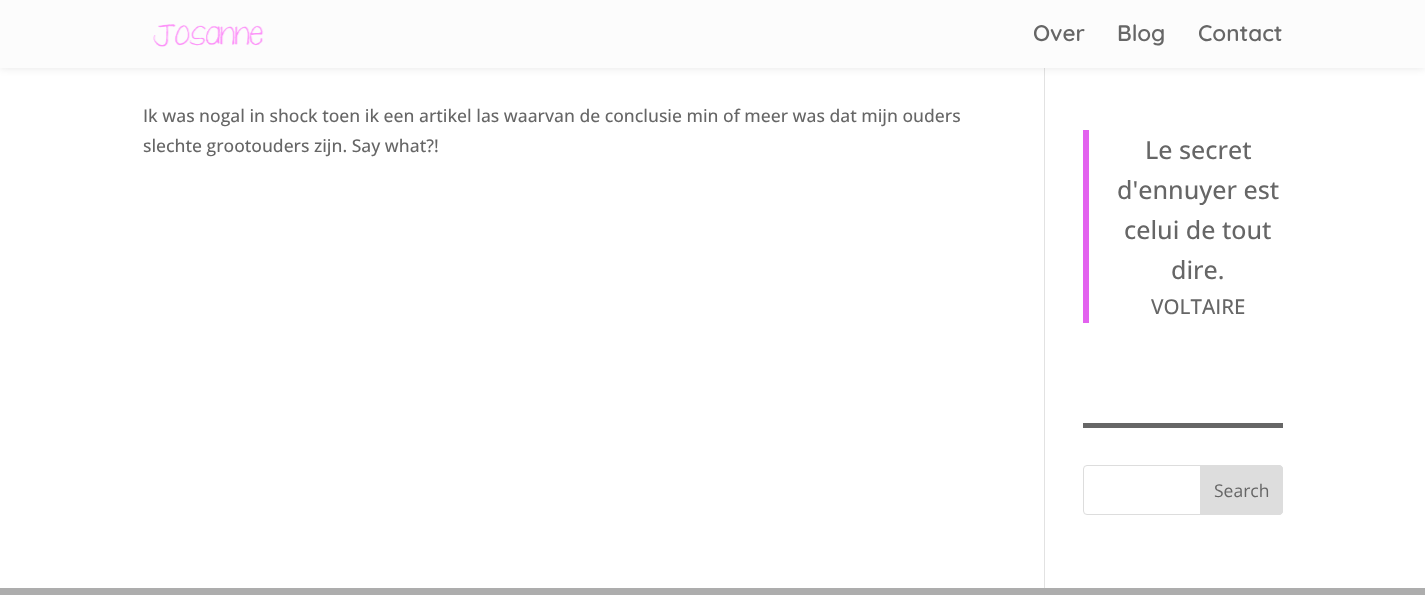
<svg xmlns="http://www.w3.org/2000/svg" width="1425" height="595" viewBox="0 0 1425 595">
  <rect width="100%" height="100%" fill="rgb(255,255,255)"/>
  <rect x="1044" y="68" width="1" height="520" fill="rgb(226,226,226)"/>
  <rect x="0" y="0" width="1425" height="68" fill="rgba(0,0,0,0.1)" filter="blur(4.5px)"/>
  <rect x="0" y="0" width="1425" height="68" fill="rgb(252,252,252)"/>
  <image x="153" y="24" width="111" height="23" href="pic1.png"/>
  <g font-family="Quicksand" font-size="22.5" font-weight="600" fill="rgb(102,102,102)">
    <text x="1033" y="41">Over</text>
    <text x="1117" y="41">Blog</text>
    <text x="1198" y="41">Contact</text>
  </g>
  <g font-family="Open Sans" font-size="17.5" font-weight="500" fill="rgb(102,102,102)">
    <text>
      <tspan x="143" y="122">Ik was nogal in shock toen ik een artikel las waarvan de conclusie min of meer was dat mijn ouders</tspan>
      <tspan x="143" y="152">slechte grootouders zijn. Say what?!</tspan>
    </text>
  </g>
  <rect x="1083" y="423" width="200" height="5" fill="rgb(102,102,102)"/>
  <rect x="1083" y="130" width="6" height="193" fill="rgb(227,98,239)"/>
  <g font-family="Open Sans" font-size="25" font-weight="500" fill="rgb(102,102,102)">
    <text x="1145" y="159">Le secret</text>
    <text x="1117" y="199">d'ennuyer est</text>
    <text x="1124" y="239">celui de tout</text>
    <text x="1171" y="279">dire.</text>
  </g>
  <text x="1151" y="314" font-family="Open Sans" font-size="20.5" font-weight="500" fill="rgb(102,102,102)">VOLTAIRE</text>
  <rect x="1083.5" y="465.5" width="199" height="49" rx="3.5" fill="none" stroke="rgb(221,221,221)"/>
  <path d="M1200.5 465.5H1279C1281 465.5 1282.5 467 1282.5 469V511C1282.5 513 1281 514.5 1279 514.5H1200.5Z" fill="rgb(221,221,221)" stroke="rgb(221,221,221)"/>
  <text x="1214" y="497" font-family="Open Sans" font-size="17.5" fill="rgb(102,102,102)">Search</text>
  <rect x="0" y="588" width="1425" height="7" fill="rgb(173,173,173)"/>
</svg>
